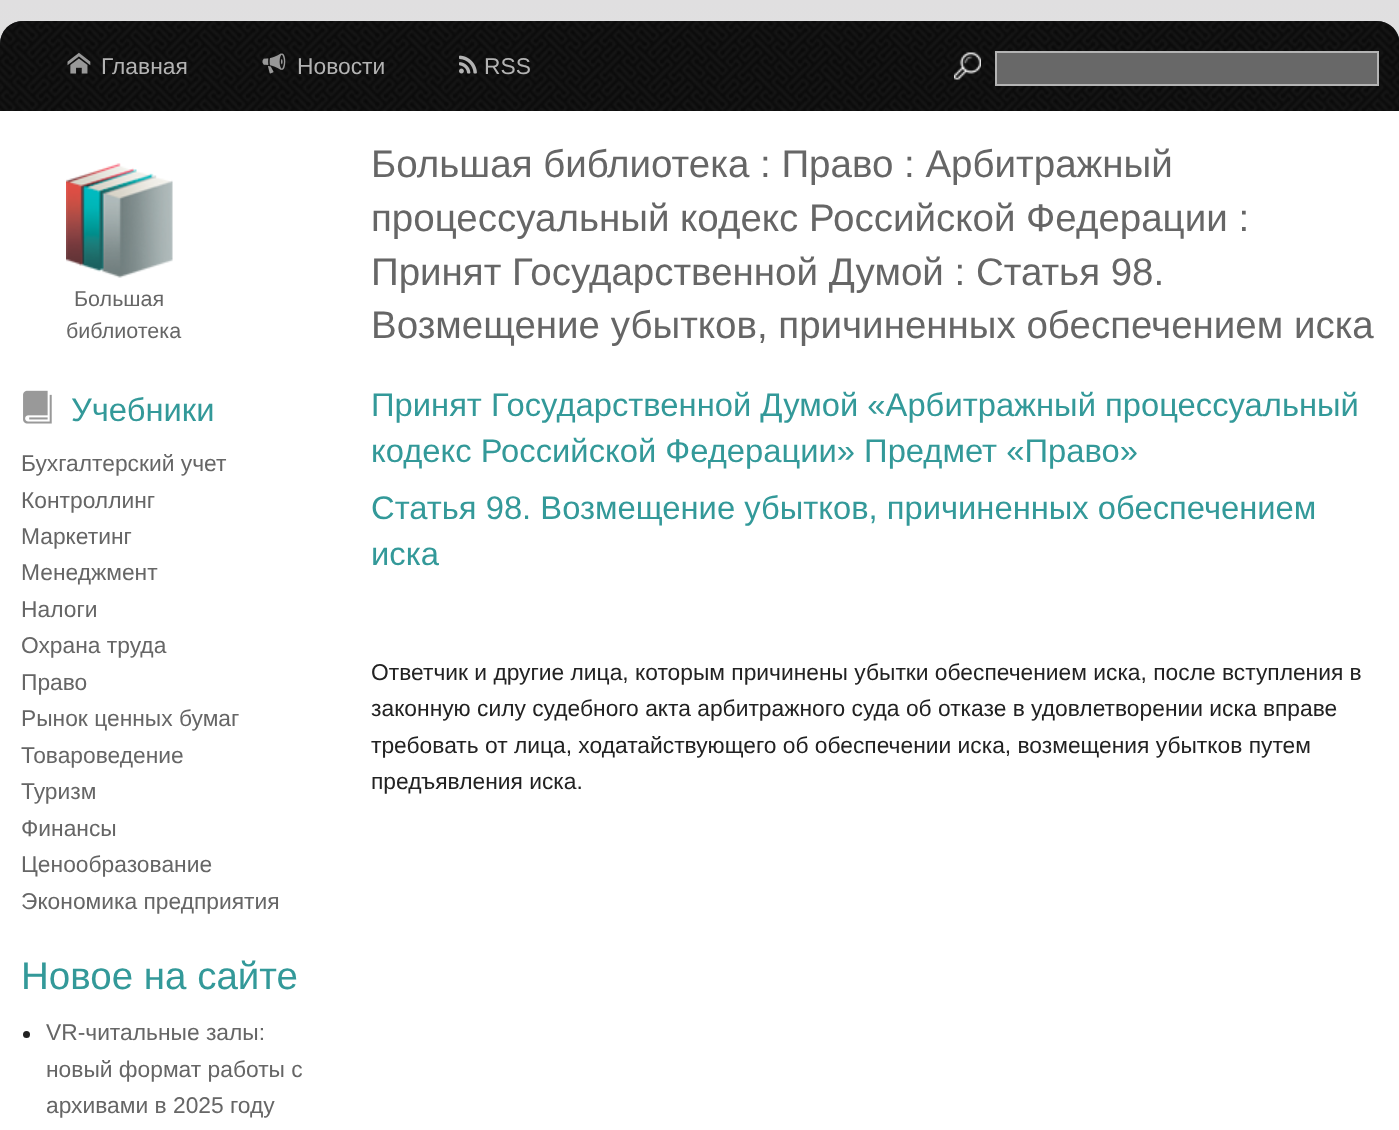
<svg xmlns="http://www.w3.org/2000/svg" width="1399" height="1130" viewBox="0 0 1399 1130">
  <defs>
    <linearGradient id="g1" gradientUnits="userSpaceOnUse" x1="700" y1="0" x2="700" y2="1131"><stop offset="0" stop-color="rgb(224,223,224)"/><stop offset="1" stop-color="rgb(216,236,237)"/></linearGradient>
  </defs>
  <rect width="100%" height="100%" fill="rgb(255,255,255)"/>
  <rect x="0" y="0" width="1399" height="44" fill="url(#g1)"/>
  <path d="M23 21H1377C1389.5 21 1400 31.5 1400 44V111H0V44C0 31.5 10.5 21 23 21Z" fill="rgb(55,59,60)"/>
  <image x="0" y="21" width="1399" height="90" href="pic1.png"/>
  <image x="67" y="52" width="24" height="22" href="pic2.png"/>
  <text x="101" y="74" font-family="Liberation Sans" font-size="22.8" fill="rgb(179,179,179)">Главная</text>
  <image x="262" y="53" width="24" height="21" href="pic3.png"/>
  <text x="297" y="74" font-family="Liberation Sans" font-size="22.8" fill="rgb(179,179,179)">Новости</text>
  <image x="459" y="55" width="18" height="19" href="pic4.png"/>
  <text x="484" y="74" font-family="Liberation Sans" font-size="22.8" fill="rgb(179,179,179)">RSS</text>
  <image x="954" y="52" width="27" height="28" href="pic5.png"/>
  <rect x="996" y="52" width="382" height="33" fill="rgb(104,104,104)" stroke="rgb(180,180,180)" stroke-width="2"/>
  <image x="66" y="163" width="107" height="115" href="pic6.png"/>
  <g font-family="Liberation Sans" font-size="21.5" fill="rgb(102,102,102)">
    <text x="74" y="306">Большая</text>
    <text x="66" y="338">библиотека</text>
  </g>
  <image x="23" y="390" width="29" height="34" href="pic7.png"/>
  <text x="71" y="421" font-family="Liberation Sans" font-size="32.75" fill="rgb(51,153,153)">Учебники</text>
  <g font-family="Liberation Sans" font-size="22.8" fill="rgb(102,102,102)">
    <text>
      <tspan x="21" y="471">Бухгалтерский учет</tspan>
      <tspan x="21" y="508">Контроллинг</tspan>
      <tspan x="21" y="544">Маркетинг</tspan>
      <tspan x="21" y="580">Менеджмент</tspan>
      <tspan x="21" y="617">Налоги</tspan>
      <tspan x="21" y="653">Охрана труда</tspan>
      <tspan x="21" y="690">Право</tspan>
      <tspan x="21" y="726">Рынок ценных бумаг</tspan>
      <tspan x="21" y="763">Товароведение</tspan>
      <tspan x="21" y="799">Туризм</tspan>
      <tspan x="21" y="836">Финансы</tspan>
      <tspan x="21" y="872">Ценообразование</tspan>
      <tspan x="21" y="909">Экономика предприятия</tspan>
    </text>
  </g>
  <text x="21" y="989" font-family="Liberation Sans" font-size="38.5" fill="rgb(51,153,153)">Новое на сайте</text>
  <circle cx="26.5" cy="1034.5" r="3.5" fill="rgb(34,34,34)"/>
  <g font-family="Liberation Sans" font-size="22.8" fill="rgb(102,102,102)">
    <text>
      <tspan x="46" y="1040">VR-читальные залы:</tspan>
      <tspan x="46" y="1077">новый формат работы с</tspan>
      <tspan x="46" y="1113">архивами в 2025 году</tspan>
    </text>
  </g>
  <g font-family="Liberation Sans" font-size="38.5" fill="rgb(102,102,102)">
    <text>
      <tspan x="371" y="177">Большая библиотека : Право : Арбитражный</tspan>
      <tspan x="371" y="231">процессуальный кодекс Российской Федерации :</tspan>
      <tspan x="371" y="285">Принят Государственной Думой : Статья 98.</tspan>
      <tspan x="371" y="338">Возмещение убытков, причиненных обеспечением иска</tspan>
    </text>
  </g>
  <g font-family="Liberation Sans" font-size="32.75" fill="rgb(51,153,153)">
    <text>
      <tspan x="371" y="416">Принят Государственной Думой «Арбитражный процессуальный</tspan>
      <tspan x="371" y="462">кодекс Российской Федерации» Предмет «Право»</tspan>
      <tspan x="371" y="519">Статья 98. Возмещение убытков, причиненных обеспечением</tspan>
      <tspan x="371" y="565">иска</tspan>
    </text>
  </g>
  <g font-family="Liberation Sans" font-size="22.8" fill="rgb(34,34,34)">
    <text>
      <tspan x="371" y="680">Ответчик и другие лица, которым причинены убытки обеспечением иска, после вступления в</tspan>
      <tspan x="371" y="716">законную силу судебного акта арбитражного суда об отказе в удовлетворении иска вправе</tspan>
      <tspan x="371" y="753">требовать от лица, ходатайствующего об обеспечении иска, возмещения убытков путем</tspan>
      <tspan x="371" y="789">предъявления иска.</tspan>
    </text>
  </g>
</svg>
